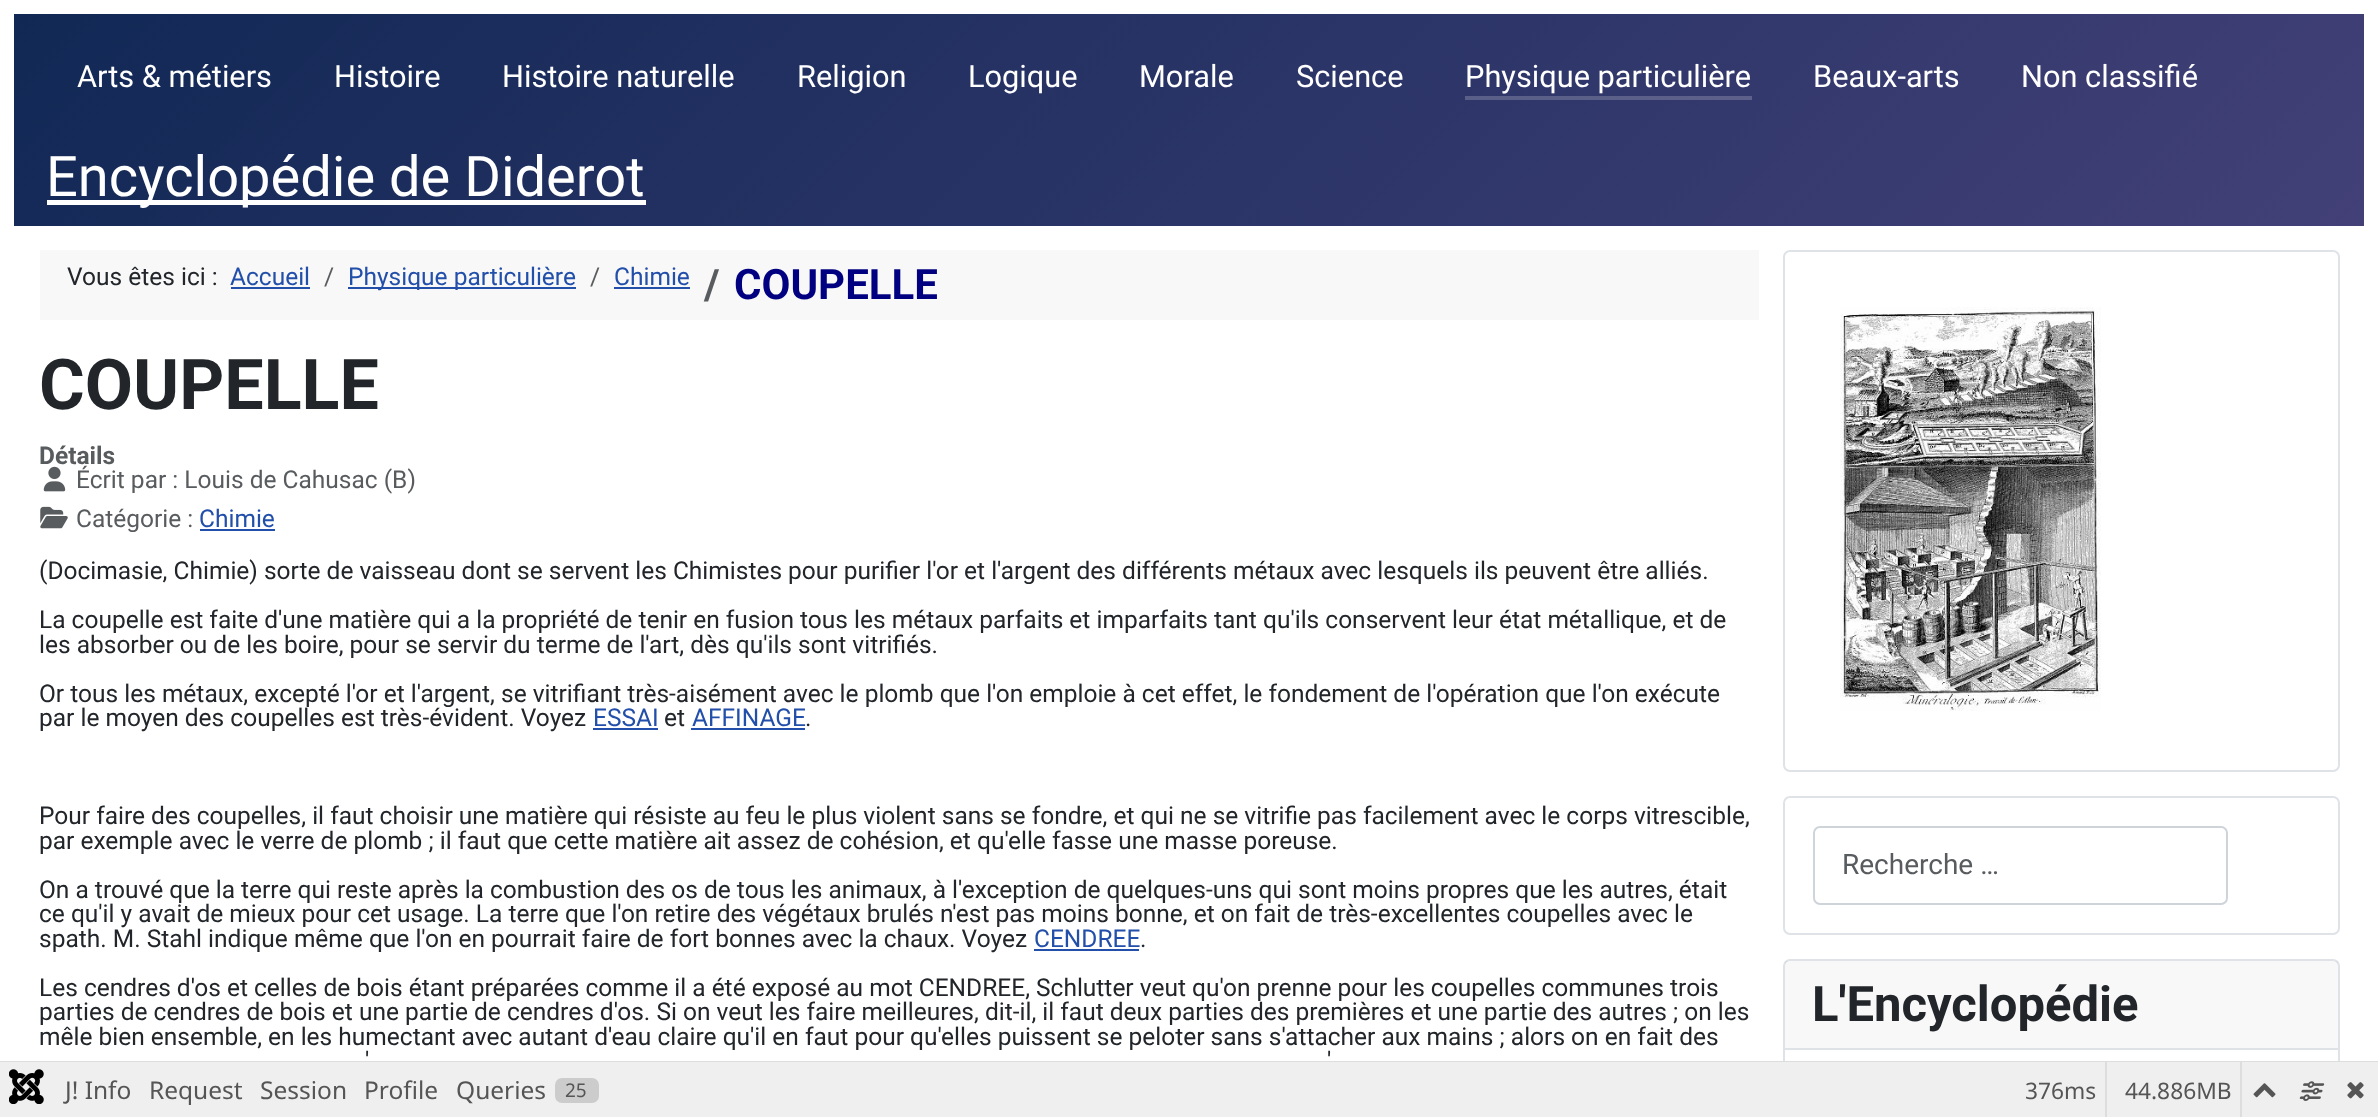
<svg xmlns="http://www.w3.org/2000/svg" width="2378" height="1117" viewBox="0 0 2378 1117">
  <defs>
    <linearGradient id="g1" gradientUnits="userSpaceOnUse" x1="549" y1="-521" x2="1830" y2="760"><stop offset="0" stop-color="rgb(17,40,85)"/><stop offset="1" stop-color="rgb(66,64,119)"/></linearGradient>
    <linearGradient id="g2" gradientUnits="userSpaceOnUse" x1="549" y1="-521" x2="1830" y2="760"><stop offset="0" stop-color="rgb(65,83,119)"/><stop offset="1" stop-color="rgb(104,102,146)"/></linearGradient>
  </defs>
  <rect width="100%" height="100%" fill="rgb(255,255,255)"/>
  <rect x="14" y="14" width="2350" height="212" fill="url(#g1)"/>
  <rect x="1465" y="96" width="287" height="4" fill="url(#g2)"/>
  <g font-family="Roboto" font-size="30.75" fill="rgb(255,255,255)">
    <text x="77" y="87">Arts &amp; métiers</text>
    <text x="334" y="87">Histoire</text>
    <text x="502" y="87">Histoire naturelle</text>
    <text x="797" y="87">Religion</text>
    <text x="968" y="87">Logique</text>
    <text x="1139" y="87">Morale</text>
    <text x="1296" y="87">Science</text>
    <text x="1465" y="87">Physique particulière</text>
    <text x="1813" y="87">Beaux-arts</text>
    <text x="2021" y="87">Non classifié</text>
  </g>
  <rect x="47" y="200" width="599" height="5" fill="rgb(255,255,255)"/>
  <text x="46" y="196" font-family="Roboto" font-size="56" fill="rgb(255,255,255)">Encyclopédie de Diderot</text>
  <rect x="40" y="250" width="1719" height="70" fill="rgb(248,248,248)"/>
  <text x="67" y="285" font-family="Roboto" font-size="24.5" fill="rgb(34,38,42)">Vous êtes ici :</text>
  <text x="230" y="285" font-family="Roboto" font-size="24.5" fill="rgb(34,79,170)">Accueil</text>
  <rect x="231" y="287" width="79" height="2" fill="rgb(34,79,170)"/>
  <text x="324" y="285" font-family="Roboto" font-size="24.5" fill="rgb(89,92,95)">/</text>
  <rect x="348" y="287" width="228" height="2" fill="rgb(34,79,170)"/>
  <text x="348" y="285" font-family="Roboto" font-size="24.5" fill="rgb(34,79,170)">Physique particulière</text>
  <text x="590" y="285" font-family="Roboto" font-size="24.5" fill="rgb(89,92,95)">/</text>
  <text x="614" y="285" font-family="Roboto" font-size="24.5" fill="rgb(34,79,170)">Chimie</text>
  <rect x="614" y="287" width="76" height="2" fill="rgb(34,79,170)"/>
  <text x="704" y="299" font-family="Roboto" font-size="42" font-weight="bold" fill="rgb(89,92,95)">/</text>
  <text x="734" y="299" font-family="Roboto" font-size="42" font-weight="bold" fill="rgb(0,0,128)">COUPELLE</text>
  <text x="39" y="409" font-family="Roboto" font-size="70" font-weight="bold" fill="rgb(34,38,42)">COUPELLE</text>
  <text x="39" y="464" font-family="Roboto" font-size="24.5" font-weight="bold" fill="rgb(89,92,95)">Détails</text>
  <image x="43" y="466" width="23" height="26" href="pic1.png"/>
  <text x="76" y="488" font-family="Roboto" font-size="24.5" fill="rgb(89,92,95)">Écrit par : Louis de Cahusac (B)</text>
  <image x="40" y="506" width="28" height="23" href="pic2.png"/>
  <text x="76" y="527" font-family="Roboto" font-size="24.5" fill="rgb(89,92,95)">Catégorie :</text>
  <text x="199" y="527" font-family="Roboto" font-size="24.5" fill="rgb(34,79,170)">Chimie</text>
  <rect x="200" y="529" width="75" height="2" fill="rgb(34,79,170)"/>
  <g font-family="Roboto" font-size="24.5" fill="rgb(34,38,42)">
    <text x="39" y="579">(Docimasie, Chimie) sorte de vaisseau dont se servent les Chimistes pour purifier l'or et l'argent des différents métaux avec lesquels ils peuvent être alliés.</text>
    <text>
      <tspan x="39" y="628">La coupelle est faite d'une matière qui a la propriété de tenir en fusion tous les métaux parfaits et imparfaits tant qu'ils conservent leur état métallique, et de</tspan>
      <tspan x="39" y="653">les absorber ou de les boire, pour se servir du terme de l'art, dès qu'ils sont vitrifiés.</tspan>
    </text>
    <text>
      <tspan x="39" y="702">Or tous les métaux, excepté l'or et l'argent, se vitrifiant très-aisément avec le plomb que l'on emploie à cet effet, le fondement de l'opération que l'on exécute</tspan>
      <tspan x="39" y="726">par le moyen des coupelles est très-évident. Voyez</tspan>
    </text>
  </g>
  <text x="593" y="726" font-family="Roboto" font-size="24.5" fill="rgb(34,79,170)">ESSAI</text>
  <rect x="593" y="728" width="65" height="2" fill="rgb(34,79,170)"/>
  <text x="664" y="726" font-family="Roboto" font-size="24.5" fill="rgb(34,38,42)">et</text>
  <text x="692" y="726" font-family="Roboto" font-size="24.5" fill="rgb(34,79,170)">AFFINAGE</text>
  <rect x="691" y="728" width="114" height="2" fill="rgb(34,79,170)"/>
  <g font-family="Roboto" font-size="24.5" fill="rgb(34,38,42)">
    <text x="805" y="726">.</text>
    <text>
      <tspan x="39" y="824">Pour faire des coupelles, il faut choisir une matière qui résiste au feu le plus violent sans se fondre, et qui ne se vitrifie pas facilement avec le corps vitrescible,</tspan>
      <tspan x="39" y="849">par exemple avec le verre de plomb ; il faut que cette matière ait assez de cohésion, et qu'elle fasse une masse poreuse.</tspan>
    </text>
    <text>
      <tspan x="39" y="898">On a trouvé que la terre qui reste après la combustion des os de tous les animaux, à l'exception de quelques-uns qui sont moins propres que les autres, était</tspan>
      <tspan x="39" y="922">ce qu'il y avait de mieux pour cet usage. La terre que l'on retire des végétaux brulés n'est pas moins bonne, et on fait de très-excellentes coupelles avec le</tspan>
      <tspan x="39" y="947">spath. M. Stahl indique même que l'on en pourrait faire de fort bonnes avec la chaux. Voyez</tspan>
    </text>
  </g>
  <text x="1034" y="947" font-family="Roboto" font-size="24.5" fill="rgb(34,79,170)">CENDREE</text>
  <rect x="1034" y="949" width="105" height="2" fill="rgb(34,79,170)"/>
  <g font-family="Roboto" font-size="24.5" fill="rgb(34,38,42)">
    <text x="1140" y="947">.</text>
    <text>
      <tspan x="39" y="996">Les cendres d'os et celles de bois étant préparées comme il a été exposé au mot CENDREE, Schlutter veut qu'on prenne pour les coupelles communes trois</tspan>
      <tspan x="39" y="1020">parties de cendres de bois et une partie de cendres d'os. Si on veut les faire meilleures, dit-il, il faut deux parties des premières et une partie des autres ; on les</tspan>
      <tspan x="39" y="1045">mêle bien ensemble, en les humectant avec autant d'eau claire qu'il en faut pour qu'elles puissent se peloter sans s'attacher aux mains ; alors on en fait des</tspan>
    </text>
    <text x="365" y="1069">'</text>
    <text x="1327" y="1069">'</text>
  </g>
  <rect x="1784" y="251" width="555" height="520" rx="6" fill="none" stroke="rgb(223,227,231)" stroke-width="2"/>
  <image x="1840" y="307" width="261" height="404" href="pic3.png"/>
  <rect x="1784" y="797" width="555" height="137" rx="6" fill="none" stroke="rgb(223,227,231)" stroke-width="2"/>
  <rect x="1814" y="827" width="413" height="77" rx="6" fill="none" stroke="rgb(206,212,218)" stroke-width="2"/>
  <text x="1842" y="874" font-family="Roboto" font-size="28" fill="rgb(89,92,95)">Recherche …</text>
  <rect x="1784" y="960" width="555" height="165" rx="6" fill="none" stroke="rgb(223,227,231)" stroke-width="2"/>
  <rect x="1785" y="961" width="553" height="87" fill="rgba(34,38,42,0.03)"/>
  <rect x="1785" y="1048" width="553" height="2" fill="rgb(223,227,231)"/>
  <text x="1812" y="1021" font-family="Roboto" font-size="49" font-weight="bold" fill="rgb(34,38,42)">L'Encyclopédie</text>
  <rect x="0" y="1061" width="2378" height="1" fill="rgb(221,221,221)"/>
  <rect x="0" y="1062" width="2378" height="55" fill="rgb(239,239,239)"/>
  <image x="9" y="1069" width="35" height="35" href="pic4.png"/>
  <g font-family="Noto Sans" font-size="24.5" fill="rgb(85,85,85)">
    <text x="65" y="1099">J! Info</text>
    <text x="149" y="1099">Request</text>
    <text x="260" y="1099">Session</text>
    <text x="364" y="1099">Profile</text>
    <text x="456" y="1099">Queries</text>
  </g>
  <rect x="555" y="1078" width="44" height="25" rx="7" fill="rgb(204,204,204)"/>
  <text x="565" y="1097" font-family="Noto Sans" font-size="19" fill="rgb(85,85,85)">25</text>
  <rect x="2105" y="1062" width="2" height="55" fill="rgb(221,221,221)"/>
  <text x="2025" y="1099" font-family="Noto Sans" font-size="22.75" fill="rgb(85,85,85)">376ms</text>
  <rect x="2240" y="1062" width="2" height="55" fill="rgb(221,221,221)"/>
  <text x="2125" y="1099" font-family="Noto Sans" font-size="22.75" fill="rgb(85,85,85)">44.886MB</text>
  <image x="2253" y="1083" width="23" height="15" href="pic5.png"/>
  <image x="2299" y="1081" width="26" height="20" href="pic6.png"/>
  <image x="2347" y="1082" width="17" height="17" href="pic7.png"/>
</svg>
